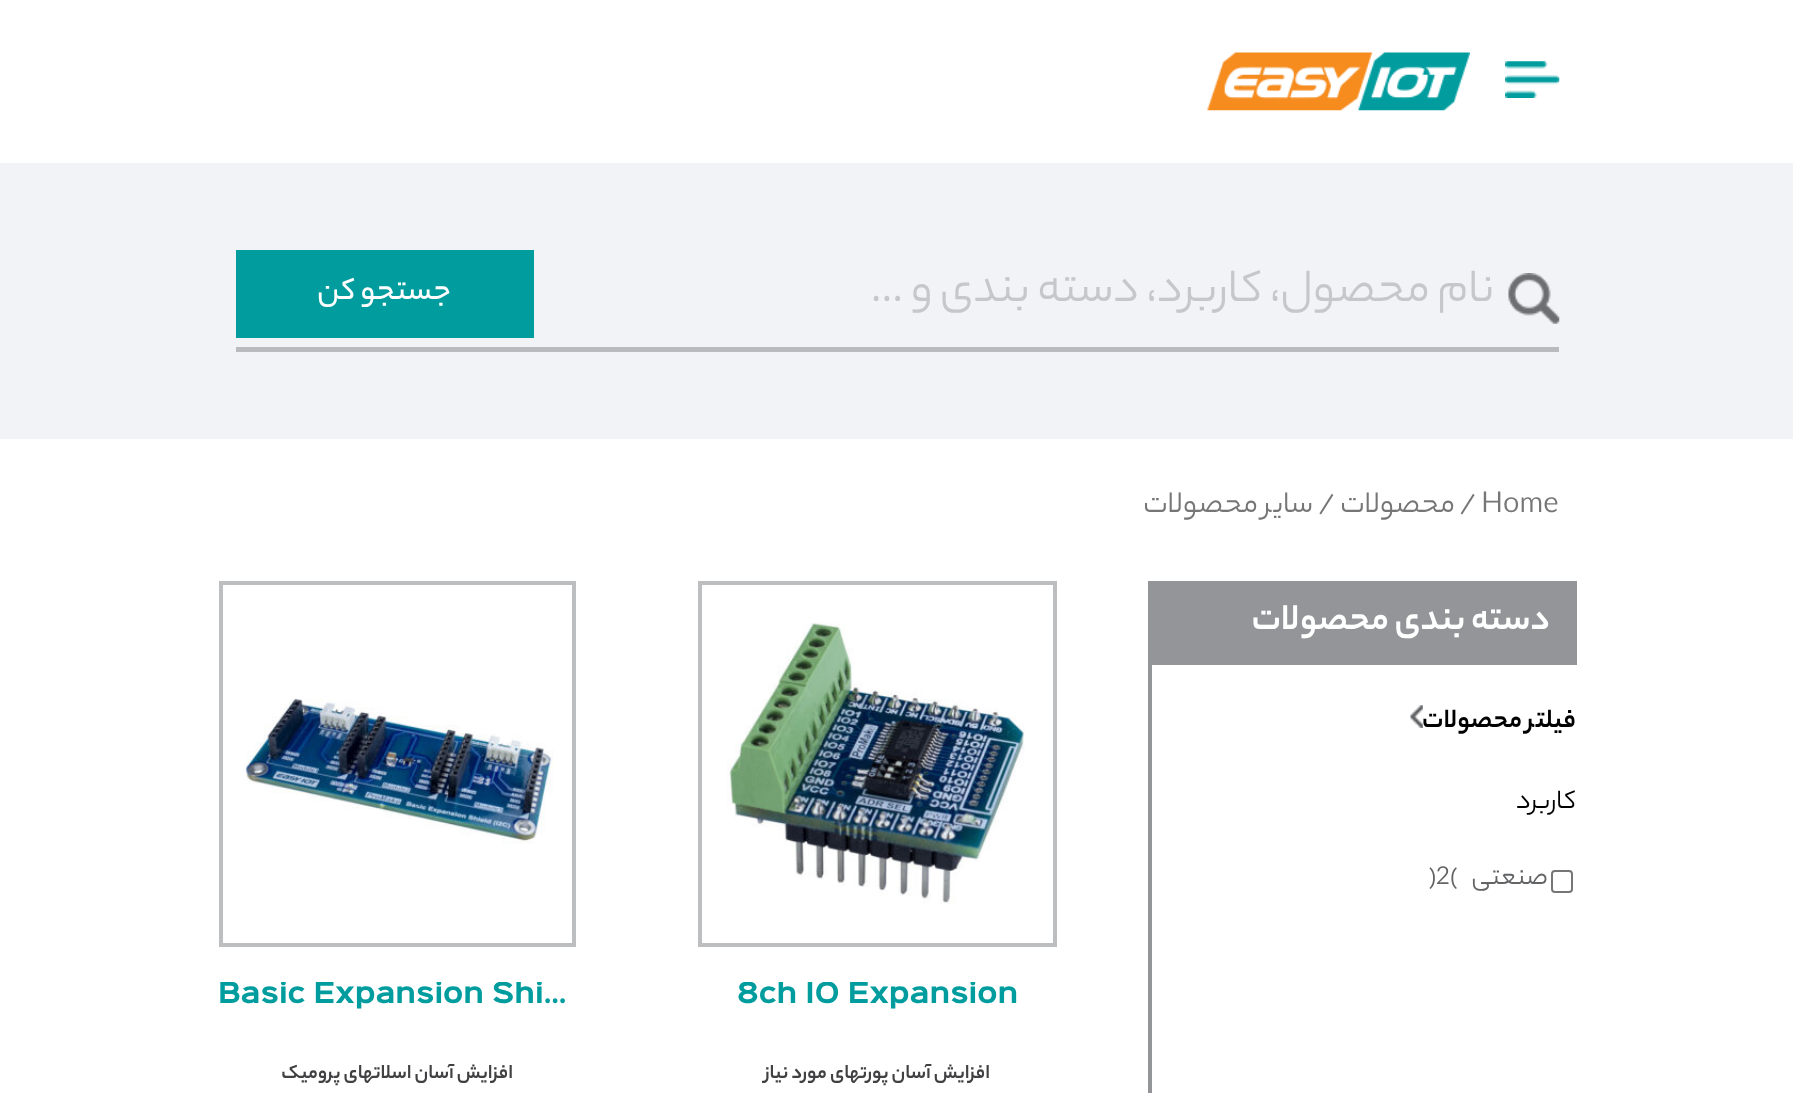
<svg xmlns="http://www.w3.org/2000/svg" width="1793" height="1093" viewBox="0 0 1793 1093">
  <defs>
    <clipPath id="clip1"><rect x="698" y="982" width="359" height="77"/></clipPath>
    <clipPath id="clip2"><rect x="219" y="982" width="357" height="77"/></clipPath>
  </defs>
  <rect width="100%" height="100%" fill="rgb(255,255,255)"/>
  <image x="1505" y="61" width="55" height="37" href="pic1.png"/>
  <image x="1207" y="52" width="263" height="59" href="pic2.png"/>
  <rect x="0" y="163" width="1793" height="276" fill="rgb(241,243,247)"/>
  <image x="1508" y="273" width="52" height="51" href="pic3.png"/>
  <rect x="236" y="347" width="1323" height="5" fill="rgb(184,186,189)"/>
  <text x="1494" y="301" font-family="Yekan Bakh" font-size="49" direction="rtl" fill="rgb(197,199,202)">نام محصول، کاربرد، دسته بندی و ...</text>
  <rect x="236" y="250" width="298" height="88" fill="rgb(0,156,158)"/>
  <text x="451" y="299" font-family="Yekan Bakh" font-size="33.25" font-weight="500" direction="rtl" fill="rgb(255,255,255)">جستجو کن</text>
  <g font-family="Yekan Bakh" font-size="31.5" fill="rgb(118,118,118)">
    <text x="1481" y="512">Home</text>
    <text x="1459" y="512">/</text>
  </g>
  <g font-family="Yekan Bakh" font-size="31.5" direction="rtl" fill="rgb(118,118,118)">
    <text x="1455" y="512">محصولات</text>
    <text x="1335" y="512">/ سایر محصولات</text>
  </g>
  <rect x="1148" y="581" width="4" height="512" fill="rgb(147,149,152)"/>
  <rect x="1152" y="581" width="425" height="84" fill="rgb(147,149,152)"/>
  <text x="1550" y="629" font-family="Yekan Bakh" font-size="38.5" font-weight="bold" direction="rtl" fill="rgb(255,255,255)">دسته بندی محصولات</text>
  <text x="1576" y="727" font-family="Yekan Bakh" font-size="28" font-weight="bold" direction="rtl" fill="rgb(0,0,0)">فیلتر محصولات</text>
  <image x="1410" y="705" width="13" height="23" href="pic4.png"/>
  <text x="1576" y="808" font-family="Yekan Bakh" font-size="28" direction="rtl" fill="rgb(0,0,0)">کاربرد</text>
  <rect x="1552" y="871" width="20" height="21" rx="3" fill="none" stroke="rgb(118,118,118)" stroke-width="2"/>
  <text x="1548" y="884" font-family="Yekan Bakh" font-size="28" direction="rtl" fill="rgb(99,100,102)">صنعتی</text>
  <g font-family="Yekan Bakh" font-size="28" fill="rgb(99,100,102)">
    <text x="1450" y="884">(</text>
    <text x="1436" y="884">2</text>
    <text x="1428" y="884">)</text>
  </g>
  <rect x="700" y="583" width="355" height="362" fill="none" stroke="rgb(188,190,192)" stroke-width="4"/>
  <image x="726" y="622" width="299" height="282" href="pic5.png"/>
  <g clip-path="url(#clip1)">
    <text x="737" y="1003" font-family="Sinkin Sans" font-size="26.25" font-weight="bold" fill="rgb(0,156,158)">8ch IO Expansion</text>
  </g>
  <text x="990" y="1078" font-family="Yekan Bakh" font-size="21" font-weight="bold" direction="rtl" fill="rgb(65,64,66)">افزايش آسان پورتهای مورد نياز</text>
  <rect x="221" y="583" width="353" height="362" fill="none" stroke="rgb(188,190,192)" stroke-width="4"/>
  <image x="245" y="698" width="309" height="146" href="pic6.png"/>
  <g clip-path="url(#clip2)">
    <text x="218" y="1003" font-family="Sinkin Sans" font-size="26.25" font-weight="bold" fill="rgb(0,156,158)">Basic Expansion Shi…</text>
  </g>
  <text x="513" y="1078" font-family="Yekan Bakh" font-size="21" font-weight="bold" direction="rtl" fill="rgb(65,64,66)">افزايش آسان اسلاتهای پروميک</text>
</svg>
